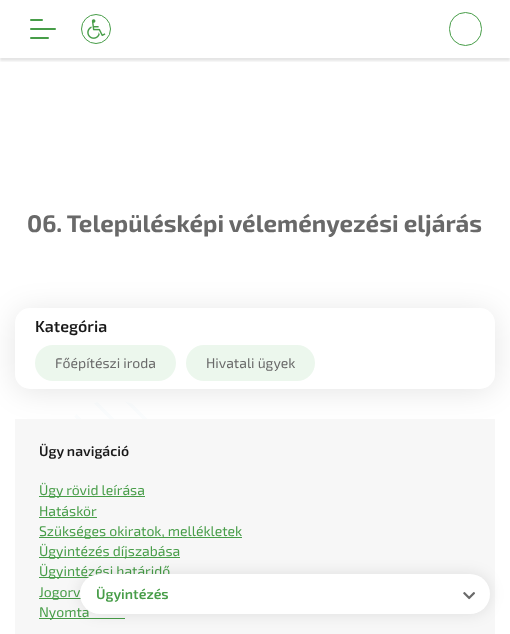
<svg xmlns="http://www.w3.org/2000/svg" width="510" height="634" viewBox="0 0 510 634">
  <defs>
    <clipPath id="clip1"><rect x="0" y="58" width="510" height="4"/></clipPath>
    <linearGradient id="g1" gradientUnits="userSpaceOnUse" x1="60" y1="505" x2="179" y2="386"><stop offset="0" stop-color="rgb(251,253,254)"/><stop offset="0.02" stop-color="rgb(251,253,254)"/><stop offset="0.02" stop-color="rgb(255,255,255)"/><stop offset="0.14" stop-color="rgb(255,255,255)"/><stop offset="0.14" stop-color="rgb(251,253,254)"/><stop offset="0.16" stop-color="rgb(251,253,254)"/><stop offset="0.16" stop-color="rgb(255,255,255)"/><stop offset="0.29" stop-color="rgb(255,255,255)"/><stop offset="0.29" stop-color="rgb(251,253,254)"/><stop offset="0.3" stop-color="rgb(251,253,254)"/><stop offset="0.3" stop-color="rgb(255,255,255)"/><stop offset="0.43" stop-color="rgb(255,255,255)"/><stop offset="0.43" stop-color="rgb(251,253,254)"/><stop offset="0.45" stop-color="rgb(251,253,254)"/><stop offset="0.45" stop-color="rgb(255,255,255)"/><stop offset="0.57" stop-color="rgb(255,255,255)"/><stop offset="0.57" stop-color="rgb(251,253,254)"/><stop offset="0.59" stop-color="rgb(251,253,254)"/><stop offset="0.59" stop-color="rgb(255,255,255)"/><stop offset="0.71" stop-color="rgb(255,255,255)"/><stop offset="0.71" stop-color="rgb(251,253,254)"/><stop offset="0.73" stop-color="rgb(251,253,254)"/><stop offset="0.73" stop-color="rgb(255,255,255)"/><stop offset="0.86" stop-color="rgb(255,255,255)"/><stop offset="0.86" stop-color="rgb(251,253,254)"/><stop offset="0.88" stop-color="rgb(251,253,254)"/><stop offset="0.88" stop-color="rgb(255,255,255)"/><stop offset="1" stop-color="rgb(255,255,255)"/></linearGradient>
  </defs>
  <rect width="100%" height="100%" fill="rgb(255,255,255)"/>
  <g clip-path="url(#clip1)">
    <rect x="0" y="3" width="510" height="58" fill="rgba(0,0,0,0.1)" filter="blur(1px)"/>
  </g>
  <rect x="30" y="19" width="13" height="2" rx="1" fill="rgb(71,157,72)"/>
  <rect x="30" y="28" width="26" height="2" rx="1" fill="rgb(71,157,72)"/>
  <rect x="30" y="37" width="19" height="2" rx="1" fill="rgb(71,157,72)"/>
  <circle cx="96" cy="29" r="14.5" fill="none" stroke="rgb(71,157,72)"/>
  <image x="87" y="19" width="19" height="20" href="pic1.png"/>
  <rect x="449.5" y="12.5" width="32" height="33" rx="16" fill="none" stroke="rgb(71,157,72)"/>
  <text x="27" y="232" font-family="'Exo 2'" font-size="24" font-weight="bold" fill="rgb(105,105,105)">06. Településképi véleményezési eljárás</text>
  <circle cx="112.5" cy="452.5" r="52.5" fill="url(#g1)"/>
  <rect x="15" y="311" width="480" height="81" rx="15" fill="rgba(0,0,0,0.1)" filter="blur(15px)"/>
  <rect x="15" y="308" width="480" height="81" rx="15" fill="rgb(255,255,255)"/>
  <text x="35" y="332" font-family="'Exo 2'" font-size="16" font-weight="600" fill="rgb(24,24,24)">Kategória</text>
  <rect x="35" y="345" width="141" height="36" rx="18" fill="rgb(236,247,237)"/>
  <text x="55" y="368" font-family="'Exo 2'" font-size="14" fill="rgb(105,105,105)">Főépítészi iroda</text>
  <rect x="186" y="345" width="129" height="36" rx="18" fill="rgb(236,247,237)"/>
  <text x="206" y="368" font-family="'Exo 2'" font-size="14" fill="rgb(105,105,105)">Hivatali ügyek</text>
  <rect x="15" y="419" width="480" height="215" fill="rgb(247,247,247)"/>
  <text x="39" y="456" font-family="'Exo 2'" font-size="14" font-weight="600" fill="rgb(24,24,24)">Ügy navigáció</text>
  <rect x="39" y="496" width="106" height="1" fill="rgb(71,157,72)"/>
  <g font-family="'Exo 2'" font-size="14" fill="rgb(71,157,72)">
    <text>
      <tspan x="39" y="495">Ügy rövid leírása</tspan>
      <tspan x="39" y="516">Hatáskör</tspan>
    </text>
  </g>
  <rect x="39" y="517" width="58" height="1" fill="rgb(71,157,72)"/>
  <rect x="39" y="537" width="203" height="1" fill="rgb(71,157,72)"/>
  <text x="39" y="536" font-family="'Exo 2'" font-size="14" fill="rgb(71,157,72)">Szükséges okiratok, mellékletek</text>
  <rect x="39" y="557" width="141" height="1" fill="rgb(71,157,72)"/>
  <text x="39" y="556" font-family="'Exo 2'" font-size="14" fill="rgb(71,157,72)">Ügyintézés díjszabása</text>
  <rect x="39" y="577" width="51" height="1" fill="rgb(71,157,72)"/>
  <text x="39" y="576" font-family="'Exo 2'" font-size="14" fill="rgb(71,157,72)">Ügyintézési határidő</text>
  <rect x="39" y="598" width="42" height="1" fill="rgb(71,157,72)"/>
  <text x="39" y="597" font-family="'Exo 2'" font-size="14" fill="rgb(71,157,72)">Jogorv</text>
  <rect x="39" y="618" width="86" height="1" fill="rgb(71,157,72)"/>
  <text x="39" y="617" font-family="'Exo 2'" font-size="14" fill="rgb(71,157,72)">Nyomta</text>
  <rect x="80" y="574" width="410" height="40" rx="20" fill="rgba(0,0,0,0.1)" filter="blur(7.5px)"/>
  <rect x="80" y="574" width="410" height="40" rx="20" fill="rgb(255,255,255)"/>
  <text x="96" y="599" font-family="'Exo 2'" font-size="14" font-weight="600" fill="rgb(71,157,72)">Ügyintézés</text>
  <image x="463" y="592" width="12" height="8" href="pic2.png"/>
</svg>
